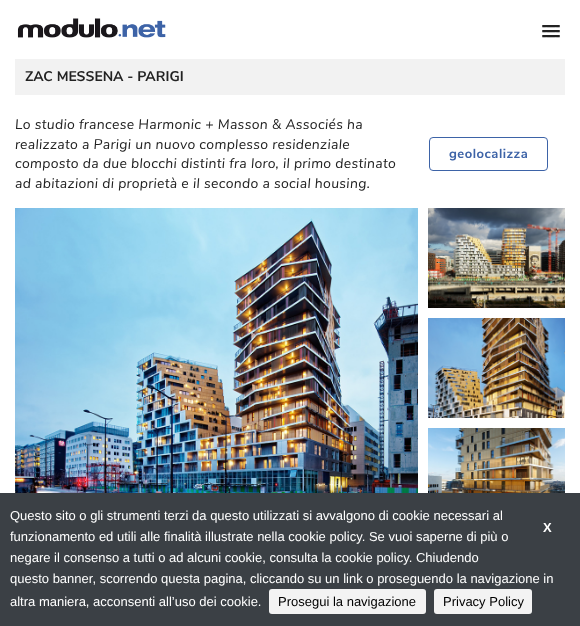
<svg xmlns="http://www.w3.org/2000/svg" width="580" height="626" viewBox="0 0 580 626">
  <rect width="100%" height="100%" fill="rgb(255,255,255)"/>
  <image x="17" y="18" width="149" height="20" href="pic1.png"/>
  <path d="M542 26.5C541 28.5 545.5 28 545.5 28H556.5C556.5 28 561 28.5 560 26.5C559 27.5 552.5 27 551 27C549.5 27 543 27.5 542 26.5Z" fill="rgb(191,191,191)"/>
  <rect x="542" y="25" width="18" height="2" rx="1" fill="rgb(34,34,34)"/>
  <path d="M542 31.5C541 33.5 545.5 33 545.5 33H556.5C556.5 33 561 33.5 560 31.5C559 32.5 552.5 32 551 32C549.5 32 543 32.5 542 31.5Z" fill="rgb(191,191,191)"/>
  <rect x="542" y="30" width="18" height="2" rx="1" fill="rgb(34,34,34)"/>
  <path d="M542 36.5C541 38.5 545.5 38 545.5 38H556.5C556.5 38 561 38.5 560 36.5C559 37.5 552.5 37 551 37C549.5 37 543 37.5 542 36.5Z" fill="rgb(191,191,191)"/>
  <rect x="542" y="35" width="18" height="2" rx="1" fill="rgb(34,34,34)"/>
  <rect x="15" y="59" width="550" height="36" fill="rgb(242,242,242)"/>
  <text x="25" y="81" font-family="Nunito Sans" font-size="14" font-weight="bold" fill="rgb(34,34,34)">ZAC MESSENA - PARIGI</text>
  <g font-family="Nunito Sans" font-size="14" font-style="italic" letter-spacing="0.3" fill="rgb(34,34,34)">
    <text>
      <tspan x="15" y="129">Lo studio francese Harmonic + Masson &amp; Associés ha</tspan>
      <tspan x="15" y="149">realizzato a Parigi un nuovo complesso residenziale</tspan>
      <tspan x="15" y="168">composto da due blocchi distinti fra loro, il primo destinato</tspan>
      <tspan x="15" y="188">ad abitazioni di proprietà e il secondo a social housing.</tspan>
    </text>
  </g>
  <rect x="429.5" y="137.5" width="118" height="33" rx="3.5" fill="none" stroke="rgb(61,99,167)"/>
  <text x="449" y="158" font-family="Nunito Sans" font-size="13" font-weight="bold" letter-spacing="0.5" fill="rgb(61,99,167)">geolocalizza</text>
  <image x="15" y="208" width="403" height="285" href="pic2.png"/>
  <image x="428" y="208" width="137" height="100" href="pic3.png"/>
  <image x="428" y="318" width="137" height="100" href="pic4.png"/>
  <image x="428" y="428" width="137" height="65" href="pic5.png"/>
  <rect x="0" y="493" width="580" height="133" fill="rgb(59,64,69)"/>
  <text x="10" y="520" font-family="Liberation Sans" font-size="13" fill="rgb(255,255,255)">Questo sito o gli strumenti terzi da questo utilizzati si avvalgono di cookie necessari al</text>
  <text x="543" y="532" font-family="Liberation Sans" font-size="13" font-weight="bold" fill="rgb(255,255,255)">X</text>
  <g font-family="Liberation Sans" font-size="13" fill="rgb(255,255,255)">
    <text>
      <tspan x="10" y="541">funzionamento ed utili alle finalità illustrate nella cookie policy. Se vuoi saperne di più o</tspan>
      <tspan x="10" y="562">negare il consenso a tutti o ad alcuni cookie, consulta la cookie policy. Chiudendo</tspan>
      <tspan x="10" y="583">questo banner, scorrendo questa pagina, cliccando su un link o proseguendo la navigazione in</tspan>
      <tspan x="10" y="606">altra maniera, acconsenti all’uso dei cookie.</tspan>
    </text>
  </g>
  <rect x="269" y="589" width="157" height="25" rx="3" fill="rgb(243,243,243)"/>
  <text x="278" y="606" font-family="Liberation Sans" font-size="13" fill="rgb(0,0,0)">Prosegui la navigazione</text>
  <rect x="434" y="589" width="98" height="25" rx="3" fill="rgb(243,243,243)"/>
  <text x="443" y="606" font-family="Liberation Sans" font-size="13" fill="rgb(0,0,0)">Privacy Policy</text>
</svg>
